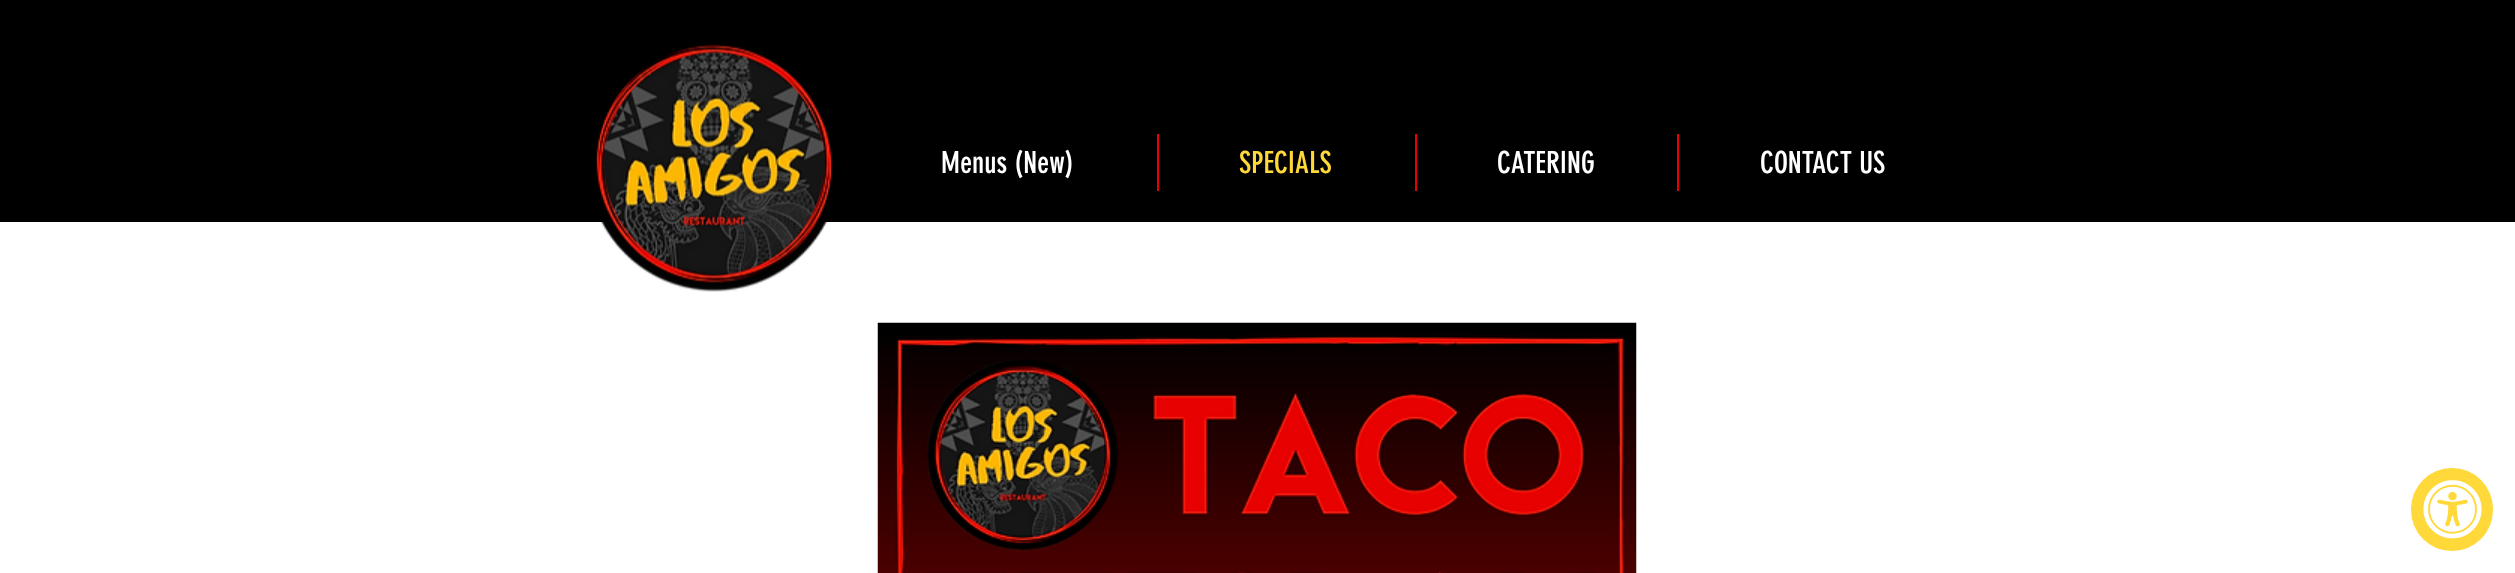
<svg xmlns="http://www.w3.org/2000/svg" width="2515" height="573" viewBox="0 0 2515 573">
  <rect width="100%" height="100%" fill="rgb(255,255,255)"/>
  <rect x="0" y="0" width="2515" height="222" fill="rgb(0,0,0)"/>
  <image x="596" y="44" width="237" height="248" href="pic1.png"/>
  <text x="941" y="173" font-family="'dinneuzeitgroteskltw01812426'" font-size="30" fill="rgb(255,255,255)">Menus (New)</text>
  <rect x="1157" y="134" width="2" height="57" fill="rgb(232,1,1)"/>
  <text x="1239" y="173" font-family="'dinneuzeitgroteskltw01812426'" font-size="30" fill="rgb(255,216,57)">SPECIALS</text>
  <rect x="1415" y="134" width="2" height="57" fill="rgb(232,1,1)"/>
  <text x="1497" y="173" font-family="'dinneuzeitgroteskltw01812426'" font-size="30" fill="rgb(255,255,255)">CATERING</text>
  <rect x="1677" y="134" width="2" height="57" fill="rgb(232,1,1)"/>
  <text x="1760" y="173" font-family="'dinneuzeitgroteskltw01812426'" font-size="30" fill="rgb(255,255,255)">CONTACT US</text>
  <image x="877" y="322" width="760" height="251" href="pic2.png"/>
  <rect x="2411" y="468" width="82" height="83" rx="41" fill="rgb(255,216,57)"/>
  <image x="2423" y="480" width="59" height="59" href="pic3.png"/>
</svg>
